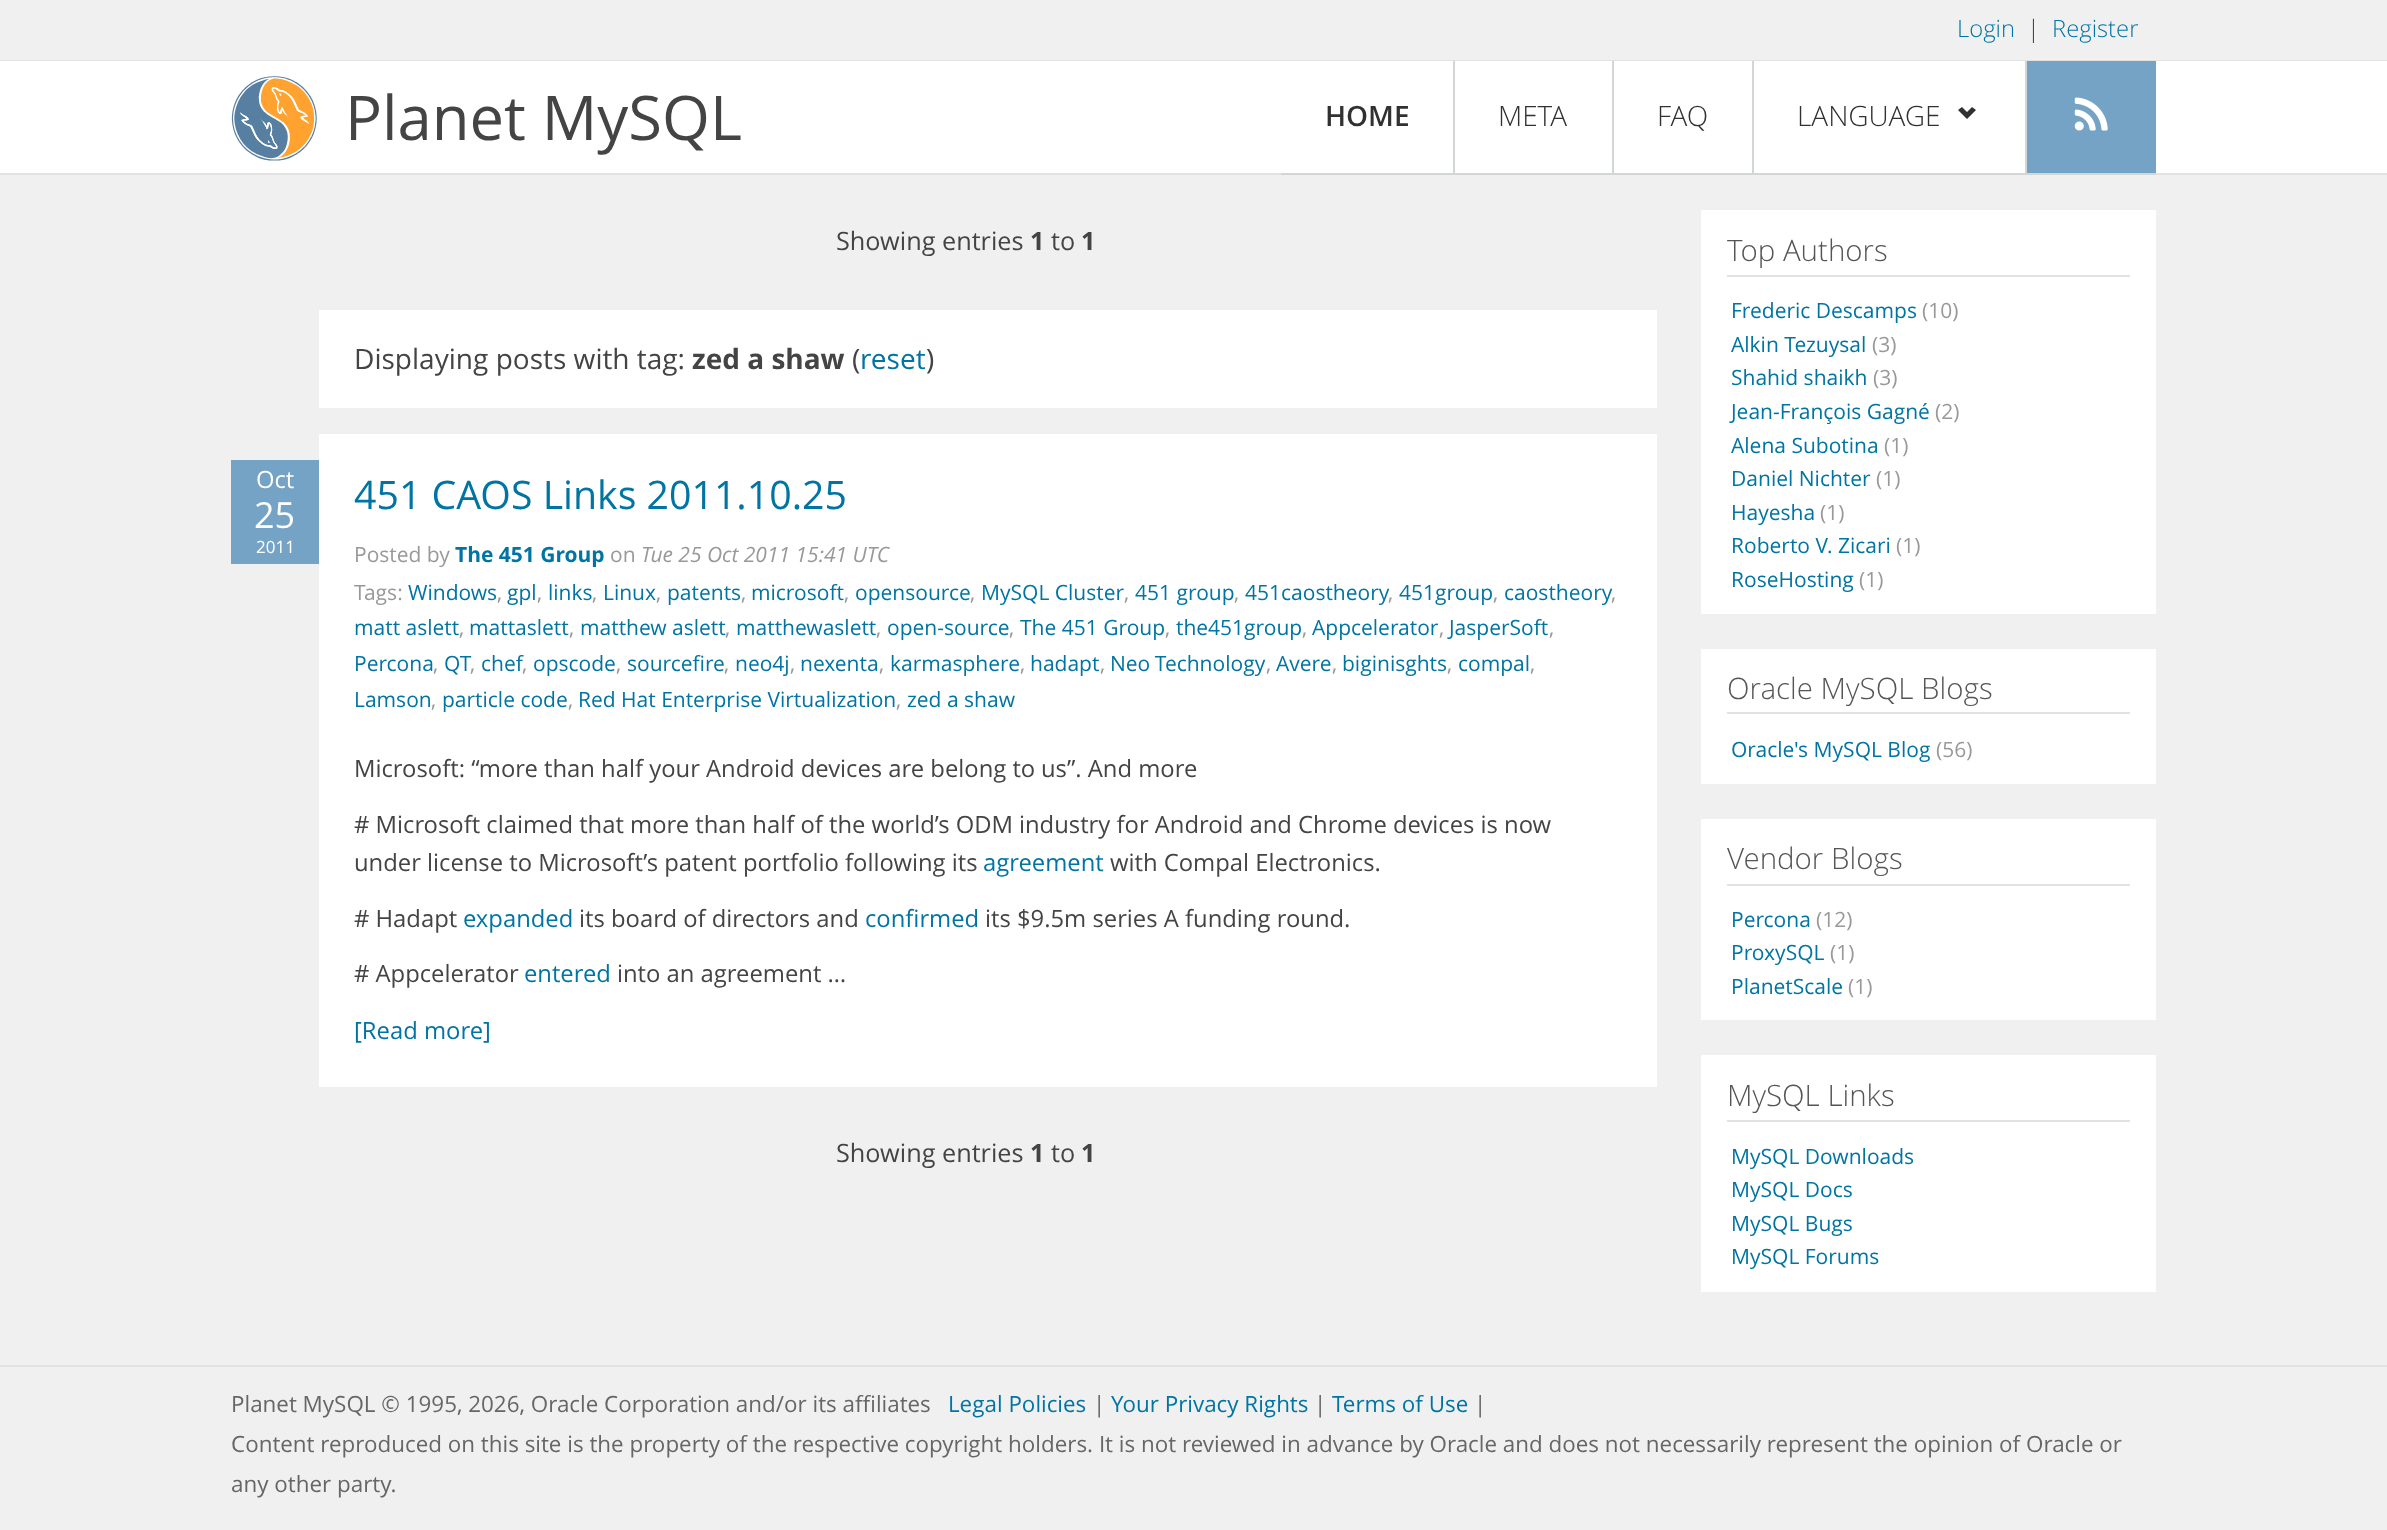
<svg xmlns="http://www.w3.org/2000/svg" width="2387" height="1530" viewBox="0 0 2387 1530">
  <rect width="100%" height="100%" fill="rgb(240,240,240)"/>
  <rect x="0" y="60" width="2387" height="1" fill="rgb(226,226,226)"/>
  <text x="1957" y="37" font-family="Open Sans" font-size="23.8" font-weight="300" fill="rgb(0,116,163)">Login</text>
  <text x="2027" y="37" font-family="Open Sans" font-size="23.8" font-weight="300" fill="rgb(68,68,68)">|</text>
  <text x="2052" y="37" font-family="Open Sans" font-size="23.8" font-weight="300" fill="rgb(0,116,163)">Register</text>
  <rect x="0" y="61" width="2387" height="112" fill="rgb(255,255,255)"/>
  <rect x="0" y="173" width="2387" height="2" fill="rgb(226,226,226)"/>
  <image x="231" y="76" width="86" height="85" href="pic1.png"/>
  <text x="345" y="140" font-family="Open Sans" font-size="61.5" fill="rgb(68,68,68)">Planet MySQL</text>
  <rect x="1281" y="173" width="875" height="2" fill="rgb(210,214,213)"/>
  <text x="1325" y="126" font-family="Open Sans" font-size="28" font-weight="600" fill="rgb(49,49,49)">HOME</text>
  <rect x="1453" y="61" width="2" height="114" fill="rgb(210,214,213)"/>
  <text x="1498" y="126" font-family="Open Sans" font-size="28" font-weight="300" fill="rgb(49,49,49)">META</text>
  <rect x="1612" y="61" width="2" height="114" fill="rgb(210,214,213)"/>
  <text x="1657" y="126" font-family="Open Sans" font-size="28" font-weight="300" fill="rgb(49,49,49)">FAQ</text>
  <rect x="1752" y="61" width="2" height="114" fill="rgb(210,214,213)"/>
  <text x="1797" y="126" font-family="Open Sans" font-size="28" font-weight="300" fill="rgb(49,49,49)">LANGUAGE</text>
  <path d="M1972 107L1967 112L1962 107L1958 110L1967 119L1976 110Z" fill="rgb(49,49,49)"/>
  <rect x="2025" y="61" width="2" height="114" fill="rgb(210,214,213)"/>
  <rect x="2027" y="61" width="129" height="112" fill="rgb(116,163,198)"/>
  <image x="2074" y="97" width="34" height="34" href="pic2.png"/>
  <text x="836" y="250" font-family="Open Sans" font-size="25.25" fill="rgb(68,68,68)">Showing entries</text>
  <text x="1030" y="250" font-family="Open Sans" font-size="25.25" font-weight="bold" fill="rgb(68,68,68)">1</text>
  <text x="1051" y="250" font-family="Open Sans" font-size="25.25" fill="rgb(68,68,68)">to</text>
  <text x="1081" y="250" font-family="Open Sans" font-size="25.25" font-weight="bold" fill="rgb(68,68,68)">1</text>
  <rect x="319" y="310" width="1338" height="98" fill="rgb(255,255,255)"/>
  <text x="354" y="369" font-family="Open Sans" font-size="28" fill="rgb(68,68,68)">Displaying posts with tag:</text>
  <text x="692" y="369" font-family="Open Sans" font-size="28" font-weight="bold" fill="rgb(68,68,68)">zed a shaw</text>
  <text x="852" y="369" font-family="Open Sans" font-size="28" fill="rgb(68,68,68)">(</text>
  <text x="860" y="369" font-family="Open Sans" font-size="28" fill="rgb(0,116,163)">reset</text>
  <text x="926" y="369" font-family="Open Sans" font-size="28" fill="rgb(68,68,68)">)</text>
  <rect x="319" y="434" width="1338" height="653" fill="rgb(255,255,255)"/>
  <rect x="231" y="460" width="88" height="104" fill="rgb(116,163,198)"/>
  <text x="256" y="488" font-family="Open Sans" font-size="23.8" fill="rgb(255,255,255)">Oct</text>
  <text x="254" y="528" font-family="Open Sans" font-size="36" fill="rgb(255,255,255)">25</text>
  <text x="256" y="553" font-family="Open Sans" font-size="17" fill="rgb(255,255,255)">2011</text>
  <text x="354" y="509" font-family="Open Sans" font-size="39.25" fill="rgb(0,116,163)">451 CAOS Links 2011.10.25</text>
  <text x="354" y="562" font-family="Open Sans" font-size="21" fill="rgb(153,153,153)">Posted by</text>
  <text x="455" y="562" font-family="Open Sans" font-size="21" font-weight="bold" fill="rgb(0,116,163)">The 451 Group</text>
  <text x="610" y="562" font-family="Open Sans" font-size="21" fill="rgb(153,153,153)">on</text>
  <text x="641" y="562" font-family="Open Sans" font-size="21" font-style="italic" fill="rgb(153,153,153)">Tue 25 Oct 2011 15:41 UTC</text>
  <text x="354" y="600" font-family="Open Sans" font-size="21" fill="rgb(153,153,153)">Tags:</text>
  <text x="408" y="600" font-family="Open Sans" font-size="21" fill="rgb(0,116,163)">Windows</text>
  <text x="497" y="600" font-family="Open Sans" font-size="21" fill="rgb(153,153,153)">,</text>
  <text x="507" y="600" font-family="Open Sans" font-size="21" fill="rgb(0,116,163)">gpl</text>
  <text x="537" y="600" font-family="Open Sans" font-size="21" fill="rgb(153,153,153)">,</text>
  <text x="548" y="600" font-family="Open Sans" font-size="21" fill="rgb(0,116,163)">links</text>
  <text x="592" y="600" font-family="Open Sans" font-size="21" fill="rgb(153,153,153)">,</text>
  <text x="603" y="600" font-family="Open Sans" font-size="21" fill="rgb(0,116,163)">Linux</text>
  <text x="656" y="600" font-family="Open Sans" font-size="21" fill="rgb(153,153,153)">,</text>
  <text x="667" y="600" font-family="Open Sans" font-size="21" fill="rgb(0,116,163)">patents</text>
  <text x="741" y="600" font-family="Open Sans" font-size="21" fill="rgb(153,153,153)">,</text>
  <text x="751" y="600" font-family="Open Sans" font-size="21" fill="rgb(0,116,163)">microsoft</text>
  <text x="844" y="600" font-family="Open Sans" font-size="21" fill="rgb(153,153,153)">,</text>
  <text x="855" y="600" font-family="Open Sans" font-size="21" fill="rgb(0,116,163)">opensource</text>
  <text x="970" y="600" font-family="Open Sans" font-size="21" fill="rgb(153,153,153)">,</text>
  <text x="981" y="600" font-family="Open Sans" font-size="21" fill="rgb(0,116,163)">MySQL Cluster</text>
  <text x="1124" y="600" font-family="Open Sans" font-size="21" fill="rgb(153,153,153)">,</text>
  <text x="1135" y="600" font-family="Open Sans" font-size="21" fill="rgb(0,116,163)">451 group</text>
  <text x="1234" y="600" font-family="Open Sans" font-size="21" fill="rgb(153,153,153)">,</text>
  <text x="1245" y="600" font-family="Open Sans" font-size="21" fill="rgb(0,116,163)">451caostheory</text>
  <text x="1388" y="600" font-family="Open Sans" font-size="21" fill="rgb(153,153,153)">,</text>
  <text x="1399" y="600" font-family="Open Sans" font-size="21" fill="rgb(0,116,163)">451group</text>
  <text x="1493" y="600" font-family="Open Sans" font-size="21" fill="rgb(153,153,153)">,</text>
  <text x="1504" y="600" font-family="Open Sans" font-size="21" fill="rgb(0,116,163)">caostheory</text>
  <text x="1611" y="600" font-family="Open Sans" font-size="21" fill="rgb(153,153,153)">,</text>
  <text x="354" y="635" font-family="Open Sans" font-size="21" fill="rgb(0,116,163)">matt aslett</text>
  <text x="459" y="635" font-family="Open Sans" font-size="21" fill="rgb(153,153,153)">,</text>
  <text x="469" y="635" font-family="Open Sans" font-size="21" fill="rgb(0,116,163)">mattaslett</text>
  <text x="569" y="635" font-family="Open Sans" font-size="21" fill="rgb(153,153,153)">,</text>
  <text x="580" y="635" font-family="Open Sans" font-size="21" fill="rgb(0,116,163)">matthew aslett</text>
  <text x="725" y="635" font-family="Open Sans" font-size="21" fill="rgb(153,153,153)">,</text>
  <text x="736" y="635" font-family="Open Sans" font-size="21" fill="rgb(0,116,163)">matthewaslett</text>
  <text x="876" y="635" font-family="Open Sans" font-size="21" fill="rgb(153,153,153)">,</text>
  <text x="887" y="635" font-family="Open Sans" font-size="21" fill="rgb(0,116,163)">open-source</text>
  <text x="1009" y="635" font-family="Open Sans" font-size="21" fill="rgb(153,153,153)">,</text>
  <text x="1020" y="635" font-family="Open Sans" font-size="21" fill="rgb(0,116,163)">The 451 Group</text>
  <text x="1165" y="635" font-family="Open Sans" font-size="21" fill="rgb(153,153,153)">,</text>
  <text x="1176" y="635" font-family="Open Sans" font-size="21" fill="rgb(0,116,163)">the451group</text>
  <text x="1302" y="635" font-family="Open Sans" font-size="21" fill="rgb(153,153,153)">,</text>
  <text x="1312" y="635" font-family="Open Sans" font-size="21" fill="rgb(0,116,163)">Appcelerator</text>
  <text x="1439" y="635" font-family="Open Sans" font-size="21" fill="rgb(153,153,153)">,</text>
  <text x="1449" y="635" font-family="Open Sans" font-size="21" fill="rgb(0,116,163)">JasperSoft</text>
  <text x="1549" y="635" font-family="Open Sans" font-size="21" fill="rgb(153,153,153)">,</text>
  <text x="354" y="671" font-family="Open Sans" font-size="21" fill="rgb(0,116,163)">Percona</text>
  <text x="433" y="671" font-family="Open Sans" font-size="21" fill="rgb(153,153,153)">,</text>
  <g font-family="Open Sans" font-size="21" fill="rgb(0,116,163)">
    <text x="444" y="671">QT</text>
    <text x="481" y="671">chef</text>
    <text x="533" y="671">opscode</text>
    <text x="627" y="671">sourcefire</text>
    <text x="735" y="671">neo4j</text>
    <text x="800" y="671">nexenta</text>
    <text x="890" y="671">karmasphere</text>
    <text x="1030" y="671">hadapt</text>
    <text x="1110" y="671" word-spacing="-1">Neo Technology</text>
    <text x="1276" y="671">Avere</text>
    <text x="1342" y="671">biginisghts</text>
    <text x="1458" y="671">compal</text>
  </g>
  <g font-family="Open Sans" font-size="21" fill="rgb(153,153,153)">
    <text x="470" y="671">,</text>
    <text x="522" y="671">,</text>
    <text x="616" y="671">,</text>
    <text x="724" y="671">,</text>
    <text x="790" y="671">,</text>
    <text x="879" y="671">,</text>
    <text x="1020" y="671">,</text>
    <text x="1100" y="671">,</text>
    <text x="1266" y="671">,</text>
    <text x="1332" y="671">,</text>
    <text x="1447" y="671">,</text>
    <text x="1530" y="671">,</text>
  </g>
  <text x="354" y="707" font-family="Open Sans" font-size="21" fill="rgb(0,116,163)">Lamson</text>
  <text x="431" y="707" font-family="Open Sans" font-size="21" fill="rgb(153,153,153)">,</text>
  <text x="442" y="707" font-family="Open Sans" font-size="21" fill="rgb(0,116,163)">particle code</text>
  <text x="568" y="707" font-family="Open Sans" font-size="21" fill="rgb(153,153,153)">,</text>
  <text x="578" y="707" font-family="Open Sans" font-size="21" fill="rgb(0,116,163)">Red Hat Enterprise Virtualization</text>
  <text x="896" y="707" font-family="Open Sans" font-size="21" fill="rgb(153,153,153)">,</text>
  <text x="907" y="707" font-family="Open Sans" font-size="21" fill="rgb(0,116,163)">zed a shaw</text>
  <g font-family="Open Sans" font-size="23.8" fill="rgb(68,68,68)">
    <text x="354" y="777">Microsoft: “more than half your Android devices are belong to</text>
    <text x="1041" y="777">us”. And more</text>
    <text x="354" y="833"># Microsoft claimed that more than half of the world’s ODM</text>
    <text x="1019" y="833">industry for Android and Chrome devices is now</text>
    <text x="354" y="871">under license to Microsoft’s patent portfolio following its</text>
  </g>
  <text x="983" y="871" font-family="Open Sans" font-size="23.8" fill="rgb(0,116,163)">agreement</text>
  <g font-family="Open Sans" font-size="23.8" fill="rgb(68,68,68)">
    <text x="1110" y="871">with Compal Electronics.</text>
    <text x="354" y="927"># Hadapt</text>
  </g>
  <text x="463" y="927" font-family="Open Sans" font-size="23.8" fill="rgb(0,116,163)">expanded</text>
  <text x="579" y="927" font-family="Open Sans" font-size="23.8" fill="rgb(68,68,68)">its board of directors and</text>
  <text x="865" y="927" font-family="Open Sans" font-size="23.8" fill="rgb(0,116,163)">confirmed</text>
  <g font-family="Open Sans" font-size="23.8" fill="rgb(68,68,68)">
    <text x="985" y="927">its $9.5m series A funding round.</text>
    <text x="354" y="982"># Appcelerator</text>
  </g>
  <text x="524" y="982" font-family="Open Sans" font-size="23.8" fill="rgb(0,116,163)">entered</text>
  <text x="617" y="982" font-family="Open Sans" font-size="23.8" fill="rgb(68,68,68)">into an agreement …</text>
  <text x="354" y="1039" font-family="Open Sans" font-size="23.8" fill="rgb(0,116,163)">[Read more]</text>
  <text x="836" y="1162" font-family="Open Sans" font-size="25.25" fill="rgb(68,68,68)">Showing entries</text>
  <text x="1030" y="1162" font-family="Open Sans" font-size="25.25" font-weight="bold" fill="rgb(68,68,68)">1</text>
  <text x="1051" y="1162" font-family="Open Sans" font-size="25.25" fill="rgb(68,68,68)">to</text>
  <text x="1081" y="1162" font-family="Open Sans" font-size="25.25" font-weight="bold" fill="rgb(68,68,68)">1</text>
  <rect x="1701" y="210" width="455" height="404" fill="rgb(255,255,255)"/>
  <rect x="1727" y="275" width="403" height="2" fill="rgb(226,226,226)"/>
  <text x="1727" y="261" font-family="Open Sans" font-size="29.5" font-weight="300" fill="rgb(85,85,85)">Top Authors</text>
  <text x="1731" y="318" font-family="Open Sans" font-size="21" fill="rgb(0,116,163)">Frederic Descamps</text>
  <text x="1922" y="318" font-family="Open Sans" font-size="21" fill="rgb(153,153,153)">(10)</text>
  <text x="1731" y="352" font-family="Open Sans" font-size="21" fill="rgb(0,116,163)">Alkin Tezuysal</text>
  <text x="1872" y="352" font-family="Open Sans" font-size="21" fill="rgb(153,153,153)">(3)</text>
  <text x="1731" y="385" font-family="Open Sans" font-size="21" fill="rgb(0,116,163)">Shahid shaikh</text>
  <text x="1873" y="385" font-family="Open Sans" font-size="21" fill="rgb(153,153,153)">(3)</text>
  <text x="1731" y="419" font-family="Open Sans" font-size="21" fill="rgb(0,116,163)">Jean-François Gagné</text>
  <text x="1935" y="419" font-family="Open Sans" font-size="21" fill="rgb(153,153,153)">(2)</text>
  <text x="1731" y="453" font-family="Open Sans" font-size="21" fill="rgb(0,116,163)">Alena Subotina</text>
  <text x="1884" y="453" font-family="Open Sans" font-size="21" fill="rgb(153,153,153)">(1)</text>
  <text x="1731" y="486" font-family="Open Sans" font-size="21" fill="rgb(0,116,163)">Daniel Nichter</text>
  <text x="1876" y="486" font-family="Open Sans" font-size="21" fill="rgb(153,153,153)">(1)</text>
  <text x="1731" y="520" font-family="Open Sans" font-size="21" fill="rgb(0,116,163)">Hayesha</text>
  <text x="1820" y="520" font-family="Open Sans" font-size="21" fill="rgb(153,153,153)">(1)</text>
  <text x="1731" y="553" font-family="Open Sans" font-size="21" fill="rgb(0,116,163)">Roberto V. Zicari</text>
  <text x="1896" y="553" font-family="Open Sans" font-size="21" fill="rgb(153,153,153)">(1)</text>
  <text x="1731" y="587" font-family="Open Sans" font-size="21" fill="rgb(0,116,163)">RoseHosting</text>
  <text x="1859" y="587" font-family="Open Sans" font-size="21" fill="rgb(153,153,153)">(1)</text>
  <rect x="1701" y="649" width="455" height="135" fill="rgb(255,255,255)"/>
  <rect x="1727" y="712" width="403" height="2" fill="rgb(226,226,226)"/>
  <text x="1727" y="699" font-family="Open Sans" font-size="29.5" font-weight="300" fill="rgb(85,85,85)">Oracle MySQL Blogs</text>
  <text x="1731" y="757" font-family="Open Sans" font-size="21" fill="rgb(0,116,163)">Oracle's MySQL Blog</text>
  <text x="1936" y="757" font-family="Open Sans" font-size="21" fill="rgb(153,153,153)">(56)</text>
  <rect x="1701" y="819" width="455" height="201" fill="rgb(255,255,255)"/>
  <rect x="1727" y="884" width="403" height="2" fill="rgb(226,226,226)"/>
  <text x="1727" y="869" font-family="Open Sans" font-size="29.5" font-weight="300" fill="rgb(85,85,85)">Vendor Blogs</text>
  <text x="1731" y="927" font-family="Open Sans" font-size="21" fill="rgb(0,116,163)">Percona</text>
  <text x="1816" y="927" font-family="Open Sans" font-size="21" fill="rgb(153,153,153)">(12)</text>
  <text x="1731" y="960" font-family="Open Sans" font-size="21" fill="rgb(0,116,163)">ProxySQL</text>
  <text x="1830" y="960" font-family="Open Sans" font-size="21" fill="rgb(153,153,153)">(1)</text>
  <text x="1731" y="994" font-family="Open Sans" font-size="21" fill="rgb(0,116,163)">PlanetScale</text>
  <text x="1848" y="994" font-family="Open Sans" font-size="21" fill="rgb(153,153,153)">(1)</text>
  <rect x="1701" y="1055" width="455" height="237" fill="rgb(255,255,255)"/>
  <rect x="1727" y="1120" width="403" height="2" fill="rgb(226,226,226)"/>
  <text x="1727" y="1106" font-family="Open Sans" font-size="29.5" font-weight="300" fill="rgb(85,85,85)">MySQL Links</text>
  <g font-family="Open Sans" font-size="21" fill="rgb(0,116,163)">
    <text>
      <tspan x="1731" y="1164">MySQL Downloads</tspan>
      <tspan x="1731" y="1197">MySQL Docs</tspan>
      <tspan x="1731" y="1231">MySQL Bugs</tspan>
      <tspan x="1731" y="1264">MySQL Forums</tspan>
    </text>
  </g>
  <rect x="0" y="1365" width="2387" height="2" fill="rgb(226,226,226)"/>
  <text x="231" y="1412" font-family="Open Sans" font-size="22.4" fill="rgb(102,102,102)">Planet MySQL © 1995, 2026, Oracle Corporation and/or its affiliates</text>
  <text x="948" y="1412" font-family="Open Sans" font-size="22.4" fill="rgb(0,116,163)">Legal Policies</text>
  <text x="1093" y="1412" font-family="Open Sans" font-size="22.4" fill="rgb(102,102,102)">|</text>
  <text x="1111" y="1412" font-family="Open Sans" font-size="22.4" fill="rgb(0,116,163)">Your Privacy Rights</text>
  <text x="1314" y="1412" font-family="Open Sans" font-size="22.4" fill="rgb(102,102,102)">|</text>
  <text x="1332" y="1412" font-family="Open Sans" font-size="22.4" fill="rgb(0,116,163)">Terms of Use</text>
  <g font-family="Open Sans" font-size="22.4" fill="rgb(102,102,102)">
    <text x="1474" y="1412">|</text>
    <text>
      <tspan x="231" y="1452">Content reproduced on this site is the property of the respective copyright holders. It is not reviewed in advance by Oracle and does not necessarily represent the opinion of Oracle or</tspan>
      <tspan x="231" y="1492">any other party.</tspan>
    </text>
  </g>
</svg>
